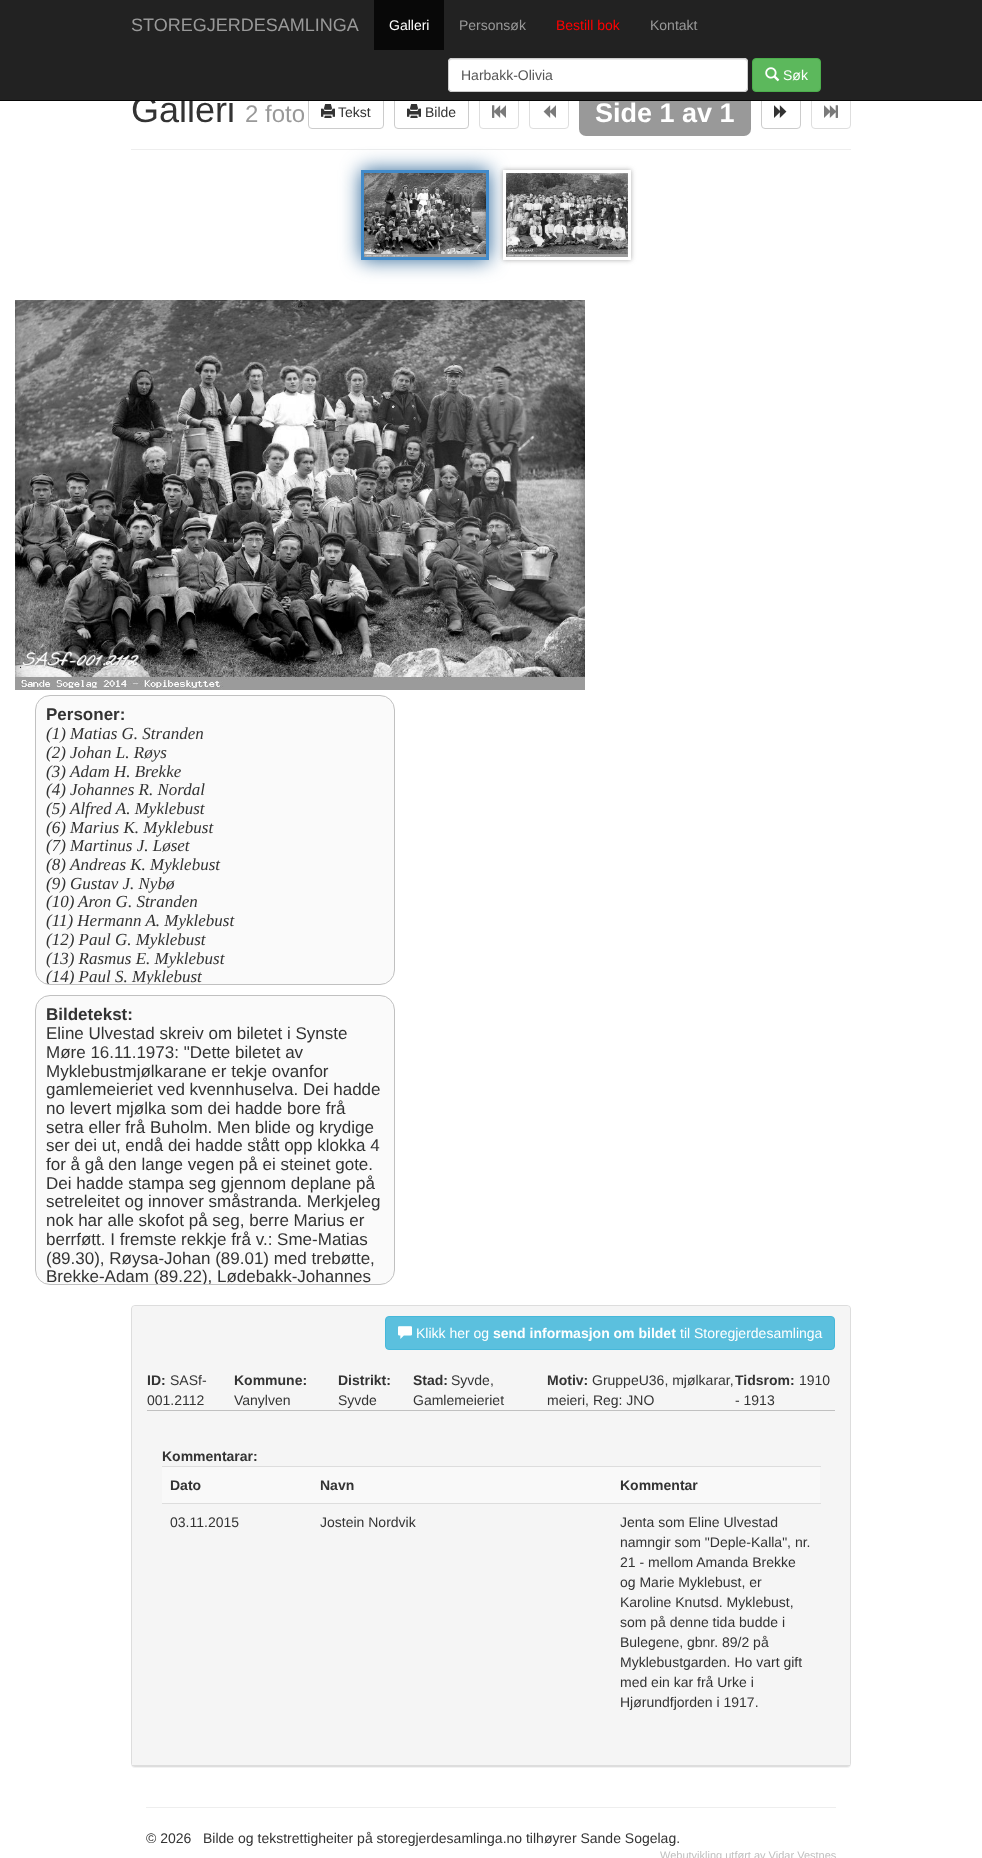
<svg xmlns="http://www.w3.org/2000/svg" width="982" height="1858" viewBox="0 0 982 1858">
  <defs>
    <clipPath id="clip1"><rect x="36" y="696" width="358" height="288" rx="14"/></clipPath>
    <clipPath id="clip2"><rect x="36" y="996" width="358" height="288" rx="14"/></clipPath>
  </defs>
  <rect width="100%" height="100%" fill="rgb(255,255,255)"/>
  <text x="131" y="122" font-family="Liberation Sans" font-size="36" fill="rgb(51,51,51)">Galleri</text>
  <rect x="308.5" y="95.5" width="75" height="33" rx="3.5" fill="none" stroke="rgb(204,204,204)"/>
  <rect x="394.5" y="95.5" width="74" height="33" rx="3.5" fill="none" stroke="rgb(204,204,204)"/>
  <rect x="479.5" y="95.5" width="39" height="33" rx="3.5" fill="none" stroke="rgb(222,222,222)"/>
  <rect x="529.5" y="95.5" width="39" height="33" rx="3.5" fill="none" stroke="rgb(222,222,222)"/>
  <rect x="579" y="93" width="172" height="43" rx="7" fill="rgb(153,153,153)"/>
  <rect x="761.5" y="95.5" width="39" height="33" rx="3.5" fill="none" stroke="rgb(204,204,204)"/>
  <rect x="811.5" y="95.5" width="39" height="33" rx="3.5" fill="none" stroke="rgb(222,222,222)"/>
  <rect x="0" y="0" width="982" height="100" fill="rgb(34,34,34)"/>
  <rect x="0" y="100" width="982" height="1" fill="rgb(8,8,8)"/>
  <text x="131" y="31" font-family="Liberation Sans" font-size="18" fill="rgb(153,153,153)">STOREGJERDESAMLINGA</text>
  <rect x="374" y="0" width="70" height="50" fill="rgb(8,8,8)"/>
  <text x="389" y="30" font-family="Liberation Sans" font-size="14" fill="rgb(255,255,255)">Galleri</text>
  <text x="459" y="30" font-family="Liberation Sans" font-size="14" fill="rgb(153,153,153)">Personsøk</text>
  <text x="556" y="30" font-family="Liberation Sans" font-size="14" fill="rgb(255,0,0)">Bestill bok</text>
  <text x="650" y="30" font-family="Liberation Sans" font-size="14" fill="rgb(153,153,153)">Kontakt</text>
  <rect x="448" y="58" width="300" height="34" rx="4" fill="rgb(255,255,255)"/>
  <path d="M452 60H744C746 60 747 61 747 63L746 60L745 59H452C450 59 449 61 449 63C449 61 450 60 452 60Z" fill="rgb(236,236,236)"/>
  <rect x="448.5" y="58.5" width="299" height="33" rx="3.5" fill="none" stroke="rgb(204,204,204)"/>
  <text x="461" y="80" font-family="Liberation Sans" font-size="14" fill="rgb(85,85,85)">Harbakk-Olivia</text>
  <rect x="752.5" y="58.5" width="68" height="33" rx="3.5" fill="rgb(92,184,92)" stroke="rgb(76,174,76)"/>
  <image x="765" y="67" width="15" height="15" href="pic1.png"/>
  <text x="783" y="80" font-family="Liberation Sans" font-size="14" fill="rgb(255,255,255)">Søk</text>
  <rect x="131" y="149" width="720" height="1" fill="rgb(238,238,238)"/>
  <text x="245" y="122" font-family="Liberation Sans" font-size="24" fill="rgb(153,153,153)">2 foto</text>
  <image x="321" y="104" width="14" height="14" href="pic2.png"/>
  <text x="338" y="117" font-family="Liberation Sans" font-size="14" fill="rgb(51,51,51)">Tekst</text>
  <image x="407" y="104" width="14" height="14" href="pic2.png"/>
  <text x="425" y="117" font-family="Liberation Sans" font-size="14" fill="rgb(51,51,51)">Bilde</text>
  <image x="492" y="105" width="14" height="13" href="pic3.png"/>
  <image x="543" y="105" width="13" height="13" href="pic4.png"/>
  <text x="595" y="122" font-family="Liberation Sans" font-size="27" font-weight="bold" fill="rgb(255,255,255)">Side 1 av 1</text>
  <image x="774" y="105" width="13" height="13" href="pic5.png"/>
  <image x="824" y="105" width="14" height="13" href="pic6.png"/>
  <rect x="361" y="170" width="128" height="90" fill="rgb(42,100,150)" filter="blur(10px)"/>
  <rect x="503" y="170" width="128" height="90" fill="rgb(170,170,170)" filter="blur(2.5px)"/>
  <image x="364" y="173" width="122" height="84" href="pic7.png"/>
  <rect x="362.5" y="171.5" width="125" height="87" fill="none" stroke="rgb(66,139,202)" stroke-width="3"/>
  <image x="506" y="173" width="122" height="84" href="pic8.png"/>
  <rect x="504.5" y="171.5" width="125" height="87" fill="none" stroke="rgb(255,255,255)" stroke-width="3"/>
  <image x="15" y="300" width="570" height="390" href="pic9.png"/>
  <rect x="35.5" y="695.5" width="359" height="289" rx="14.5" fill="rgb(250,250,250)" stroke="rgb(192,192,192)"/>
  <text x="46" y="720" font-family="Liberation Sans" font-size="17" font-weight="bold" fill="rgb(51,51,51)">Personer:</text>
  <g font-family="Liberation Serif" font-size="17" font-style="italic" fill="rgb(51,51,51)">
    <text>
      <tspan x="46" y="739">(1) Matias G. Stranden</tspan>
      <tspan x="46" y="758">(2) Johan L. Røys</tspan>
      <tspan x="46" y="777">(3)</tspan>
    </text>
    <text x="70" y="777">Adam H. Brekke</text>
    <text>
      <tspan x="46" y="795">(4) Johannes R. Nordal</tspan>
      <tspan x="46" y="814">(5)</tspan>
    </text>
    <text x="70" y="814">Alfred A. Myklebust</text>
    <text>
      <tspan x="46" y="833">(6) Marius K. Myklebust</tspan>
      <tspan x="46" y="851">(7) Martinus J. Løset</tspan>
      <tspan x="46" y="870">(8)</tspan>
    </text>
    <text x="70" y="870">Andreas K. Myklebust</text>
    <text>
      <tspan x="46" y="889">(9) Gustav J. Nybø</tspan>
      <tspan x="46" y="907">(10)</tspan>
    </text>
    <text x="78" y="907">Aron G. Stranden</text>
    <text>
      <tspan x="46" y="926">(11) Hermann A. Myklebust</tspan>
      <tspan x="46" y="945">(12) Paul G. Myklebust</tspan>
      <tspan x="46" y="964">(13) Rasmus E. Myklebust</tspan>
    </text>
  </g>
  <g clip-path="url(#clip1)">
    <text x="46" y="982" font-family="Liberation Serif" font-size="17" font-style="italic" fill="rgb(51,51,51)">(14) Paul S. Myklebust</text>
  </g>
  <rect x="35.5" y="995.5" width="359" height="289" rx="14.5" fill="rgb(250,250,250)" stroke="rgb(192,192,192)"/>
  <text x="46" y="1020" font-family="Liberation Sans" font-size="17" font-weight="bold" fill="rgb(51,51,51)">Bildetekst:</text>
  <g font-family="Liberation Sans" font-size="17" fill="rgb(51,51,51)">
    <text>
      <tspan x="46" y="1039">Eline Ulvestad skreiv om biletet i Synste</tspan>
      <tspan x="46" y="1058">Møre 16.11.1973: "Dette biletet av</tspan>
      <tspan x="46" y="1077">Myklebustmjølkarane er tekje ovanfor</tspan>
      <tspan x="46" y="1095">gamlemeieriet ved kvennhuselva. Dei hadde</tspan>
      <tspan x="46" y="1114">no levert mjølka som dei hadde bore frå</tspan>
      <tspan x="46" y="1133">setra eller frå Buholm. Men blide og krydige</tspan>
      <tspan x="46" y="1151">ser dei ut, endå dei hadde stått opp klokka 4</tspan>
      <tspan x="46" y="1170">for å gå den lange vegen på ei steinet gote.</tspan>
      <tspan x="46" y="1189">Dei hadde stampa seg gjennom deplane på</tspan>
      <tspan x="46" y="1207">setreleitet og innover småstranda. Merkjeleg</tspan>
      <tspan x="46" y="1226">nok har alle skofot på seg, berre Marius er</tspan>
      <tspan x="46" y="1245">berrføtt. I fremste rekkje frå v.: Sme-Matias</tspan>
      <tspan x="46" y="1264">(89.30), Røysa-Johan (89.01) med trebøtte,</tspan>
    </text>
  </g>
  <g clip-path="url(#clip2)">
    <text x="46" y="1282" font-family="Liberation Sans" font-size="17" fill="rgb(51,51,51)">Brekke-Adam (89.22), Lødebakk-Johannes</text>
  </g>
  <rect x="131" y="1306" width="720" height="462" rx="4" fill="rgba(0,0,0,0.05)" filter="blur(0.5px)"/>
  <rect x="131.5" y="1305.5" width="719" height="461" rx="3.5" fill="none" stroke="rgb(221,221,221)"/>
  <path d="M135 1306H847C848.5 1306 850 1307.5 850 1309V1766H132V1309C132 1307.5 133.5 1306 135 1306Z" fill="rgb(245,245,245)"/>
  <rect x="132" y="1765" width="718" height="1" fill="rgb(221,221,221)"/>
  <rect x="385.5" y="1316.5" width="449" height="33" rx="3.5" fill="rgb(91,192,222)" stroke="rgb(70,184,218)"/>
  <image x="398" y="1326" width="14" height="13" href="pic10.png"/>
  <text x="416" y="1338" font-family="Liberation Sans" font-size="14" fill="rgb(255,255,255)">Klikk her og</text>
  <text x="493" y="1338" font-family="Liberation Sans" font-size="14" font-weight="bold" fill="rgb(255,255,255)">send informasjon om bildet</text>
  <text x="680" y="1338" font-family="Liberation Sans" font-size="14" fill="rgb(255,255,255)">til Storegjerdesamlinga</text>
  <text x="147" y="1385" font-family="Liberation Sans" font-size="14" font-weight="bold" fill="rgb(51,51,51)">ID:</text>
  <g font-family="Liberation Sans" font-size="14" fill="rgb(51,51,51)">
    <text x="170" y="1385">SASf-</text>
    <text x="147" y="1405">001.2112</text>
  </g>
  <text x="234" y="1385" font-family="Liberation Sans" font-size="14" font-weight="bold" fill="rgb(51,51,51)">Kommune:</text>
  <text x="234" y="1405" font-family="Liberation Sans" font-size="14" fill="rgb(51,51,51)">Vanylven</text>
  <text x="338" y="1385" font-family="Liberation Sans" font-size="14" font-weight="bold" fill="rgb(51,51,51)">Distrikt:</text>
  <text x="338" y="1405" font-family="Liberation Sans" font-size="14" fill="rgb(51,51,51)">Syvde</text>
  <text x="413" y="1385" font-family="Liberation Sans" font-size="14" font-weight="bold" fill="rgb(51,51,51)">Stad:</text>
  <g font-family="Liberation Sans" font-size="14" fill="rgb(51,51,51)">
    <text x="451" y="1385">Syvde,</text>
    <text x="413" y="1405">Gamlemeieriet</text>
  </g>
  <text x="547" y="1385" font-family="Liberation Sans" font-size="14" font-weight="bold" fill="rgb(51,51,51)">Motiv:</text>
  <g font-family="Liberation Sans" font-size="14" fill="rgb(51,51,51)">
    <text x="592" y="1385">GruppeU36, mjølkarar,</text>
    <text x="547" y="1405">meieri, Reg: JNO</text>
  </g>
  <text x="735" y="1385" font-family="Liberation Sans" font-size="14" font-weight="bold" fill="rgb(51,51,51)">Tidsrom:</text>
  <g font-family="Liberation Sans" font-size="14" fill="rgb(51,51,51)">
    <text x="799" y="1385">1910</text>
    <text x="735" y="1405">- 1913</text>
  </g>
  <rect x="147" y="1410" width="688" height="1" fill="rgb(192,192,192)"/>
  <text x="162" y="1461" font-family="Liberation Sans" font-size="14" font-weight="bold" fill="rgb(51,51,51)">Kommentarar:</text>
  <rect x="162" y="1467" width="658" height="36" fill="rgb(249,249,249)"/>
  <g font-family="Liberation Sans" font-size="14" font-weight="bold" fill="rgb(51,51,51)">
    <text x="170" y="1490">Dato</text>
    <text x="320" y="1490">Navn</text>
  </g>
  <rect x="162" y="1466" width="659" height="1" fill="rgb(221,221,221)"/>
  <text x="620" y="1490" font-family="Liberation Sans" font-size="14" font-weight="bold" fill="rgb(51,51,51)">Kommentar</text>
  <g font-family="Liberation Sans" font-size="14" fill="rgb(51,51,51)">
    <text x="170" y="1527">03.11.2015</text>
    <text x="320" y="1527">Jostein Nordvik</text>
  </g>
  <rect x="162" y="1503" width="659" height="1" fill="rgb(221,221,221)"/>
  <g font-family="Liberation Sans" font-size="14" fill="rgb(51,51,51)">
    <text>
      <tspan x="620" y="1527">Jenta som Eline Ulvestad</tspan>
      <tspan x="620" y="1547">namngir som "Deple-Kalla", nr.</tspan>
      <tspan x="620" y="1567">21 - mellom Amanda Brekke</tspan>
      <tspan x="620" y="1587">og Marie Myklebust, er</tspan>
      <tspan x="620" y="1607">Karoline Knutsd. Myklebust,</tspan>
      <tspan x="620" y="1627">som på denne tida budde i</tspan>
      <tspan x="620" y="1647">Bulegene, gbnr. 89/2 på</tspan>
      <tspan x="620" y="1667">Myklebustgarden. Ho vart gift</tspan>
      <tspan x="620" y="1687">med ein kar frå Urke i</tspan>
      <tspan x="620" y="1707">Hjørundfjorden i 1917.</tspan>
    </text>
  </g>
  <rect x="146" y="1807" width="690" height="1" fill="rgb(238,238,238)"/>
  <text x="146" y="1843" font-family="Liberation Sans" font-size="14" fill="rgb(51,51,51)" xml:space="preserve">© 2026   Bilde og tekstrettigheiter på storegjerdesamlinga.no tilhøyrer Sande Sogelag.</text>
  <text x="660" y="1859" font-family="Liberation Sans" font-size="11" fill="rgb(192,192,192)">Webutvikling utført av Vidar Vestnes</text>
</svg>
